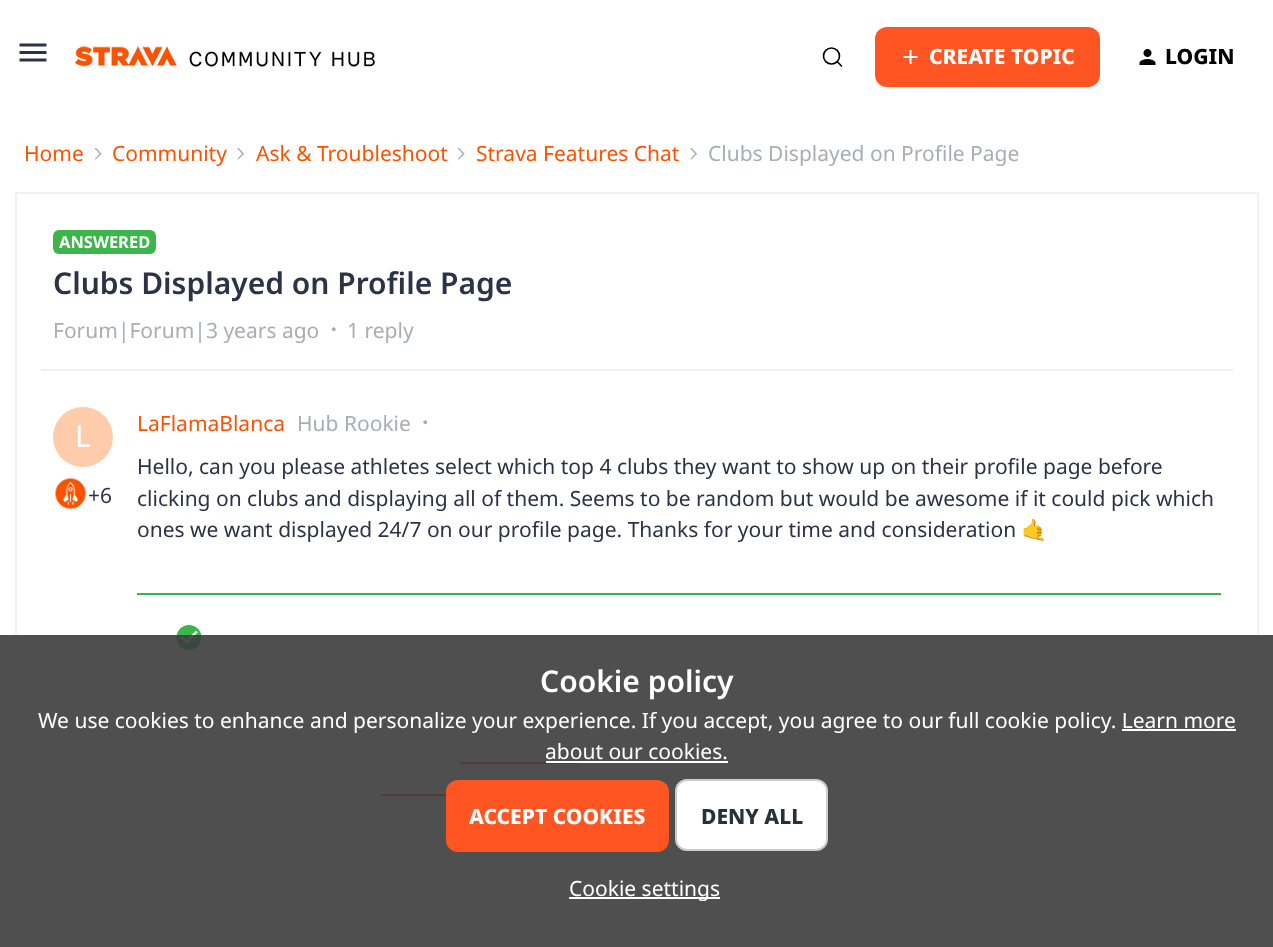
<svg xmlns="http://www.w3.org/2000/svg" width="1273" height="947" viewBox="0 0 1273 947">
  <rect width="100%" height="100%" fill="rgb(255,255,255)"/>
  <image x="19" y="43" width="28" height="19" href="pic1.png"/>
  <image x="75" y="46" width="300" height="21" href="pic2.png"/>
  <circle cx="831.5" cy="56" r="8" fill="none" stroke="rgb(0,0,0)" stroke-width="1.6"/>
  <path d="M837 61.5L841.5 66" fill="none" stroke="rgb(0,0,0)" stroke-width="1.6" stroke-linecap="round"/>
  <rect x="875" y="27" width="225" height="60" rx="12" fill="rgb(255,85,34)"/>
  <image x="903" y="50" width="15" height="14" href="pic3.png"/>
  <text x="929" y="64" font-family="Noto Sans" font-size="21" font-weight="800" fill="rgb(255,255,255)">CREATE TOPIC</text>
  <image x="1139" y="49" width="17" height="16" href="pic4.png"/>
  <text x="1165" y="64" font-family="Noto Sans" font-size="21" font-weight="800" fill="rgb(0,0,0)">LOGIN</text>
  <text x="24" y="161" font-family="Noto Sans" font-size="21" fill="rgb(252,82,0)">Home</text>
  <image x="95" y="147" width="7" height="13" href="pic5.png"/>
  <text x="112" y="161" font-family="Noto Sans" font-size="21" fill="rgb(252,82,0)">Community</text>
  <image x="237" y="147" width="7" height="13" href="pic6.png"/>
  <text x="256" y="161" font-family="Noto Sans" font-size="21" fill="rgb(252,82,0)">Ask &amp; Troubleshoot</text>
  <image x="458" y="147" width="7" height="13" href="pic5.png"/>
  <text x="476" y="161" font-family="Noto Sans" font-size="21" fill="rgb(252,82,0)">Strava Features Chat</text>
  <image x="690" y="147" width="7" height="13" href="pic6.png"/>
  <text x="708" y="161" font-family="Noto Sans" font-size="21" fill="rgb(167,174,181)">Clubs Displayed on Profile Page</text>
  <rect x="16" y="193" width="1242" height="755" fill="none" stroke="rgb(241,241,241)" stroke-width="2"/>
  <rect x="53" y="230" width="103" height="24" rx="6" fill="rgb(60,181,74)"/>
  <text x="59" y="248" font-family="Noto Sans" font-size="16.5" font-weight="bold" fill="rgb(255,255,255)">ANSWERED</text>
  <text x="53" y="294" font-family="Noto Sans" font-size="30" font-weight="600" fill="rgb(43,51,70)">Clubs Displayed on Profile Page</text>
  <text x="53" y="338" font-family="Noto Sans" font-size="21" fill="rgb(167,174,181)">Forum|Forum|3 years ago</text>
  <image x="331" y="327" width="5" height="5" href="pic7.png"/>
  <text x="347" y="338" font-family="Noto Sans" font-size="21" fill="rgb(167,174,181)">1 reply</text>
  <rect x="41" y="369" width="1192" height="2" fill="rgb(241,241,241)"/>
  <circle cx="83" cy="437" r="30" fill="rgb(254,204,171)"/>
  <text x="75" y="447" font-family="Noto Sans" font-size="30" fill="rgb(255,255,255)">L</text>
  <image x="55" y="478" width="31" height="31" href="pic8.png"/>
  <text x="88" y="503" font-family="Noto Sans" font-size="21" fill="rgb(43,51,70)">+6</text>
  <text x="137" y="431" font-family="Noto Sans" font-size="21" fill="rgb(252,82,0)">LaFlamaBlanca</text>
  <text x="297" y="431" font-family="Noto Sans" font-size="21" fill="rgb(167,174,181)">Hub Rookie</text>
  <image x="423" y="420" width="5" height="5" href="pic9.png"/>
  <g font-family="Noto Sans" font-size="21" fill="rgb(43,51,70)">
    <text>
      <tspan x="137" y="474">Hello, can you please athletes select which top 4 clubs they want to show up on their profile page before</tspan>
      <tspan x="137" y="506">clicking on clubs and displaying all of them. Seems to be random but would be awesome if it could pick which</tspan>
      <tspan x="137" y="537">ones we want displayed 24/7 on our profile page. Thanks for your time and consideration</tspan>
    </text>
  </g>
  <text x="1021" y="537" font-family="Noto Color Emoji" font-size="21" fill="rgb(43,51,70)">🤙</text>
  <rect x="137" y="593" width="1084" height="2" fill="rgb(60,181,74)"/>
  <image x="176" y="625" width="26" height="25" href="pic10.png"/>
  <rect x="459" y="762" width="119" height="2" fill="rgb(252,82,0)"/>
  <rect x="381" y="794" width="65" height="2" fill="rgb(252,82,0)"/>
  <rect x="0" y="635" width="1273" height="312" fill="rgba(60,60,60,0.9)"/>
  <text x="540" y="692" font-family="Noto Sans" font-size="30" font-weight="600" fill="rgb(255,255,255)">Cookie policy</text>
  <text x="38" y="728" font-family="Noto Sans" font-size="21" fill="rgb(255,255,255)">We use cookies to enhance and personalize your experience. If you accept, you agree to our full cookie policy. Learn more</text>
  <rect x="1122" y="729" width="114" height="2" fill="rgb(255,255,255)"/>
  <text x="545" y="759" font-family="Noto Sans" font-size="21" fill="rgb(255,255,255)">about our cookies.</text>
  <rect x="546" y="761" width="182" height="2" fill="rgb(255,255,255)"/>
  <rect x="446" y="780" width="223" height="72" rx="12" fill="rgb(255,85,34)"/>
  <text x="469" y="824" font-family="Noto Sans" font-size="21" font-weight="800" fill="rgb(255,255,255)">ACCEPT COOKIES</text>
  <rect x="675" y="779" width="153" height="72" rx="12" fill="rgb(255,255,255)"/>
  <rect x="676" y="780" width="151" height="70" rx="11" fill="none" stroke="rgba(0,0,0,0.2)" stroke-width="2"/>
  <text x="701" y="824" font-family="Noto Sans" font-size="21" font-weight="800" fill="rgb(37,49,59)">DENY ALL</text>
  <rect x="569" y="897" width="151" height="2" fill="rgb(255,255,255)"/>
  <text x="569" y="896" font-family="Noto Sans" font-size="21" fill="rgb(255,255,255)">Cookie settings</text>
</svg>
